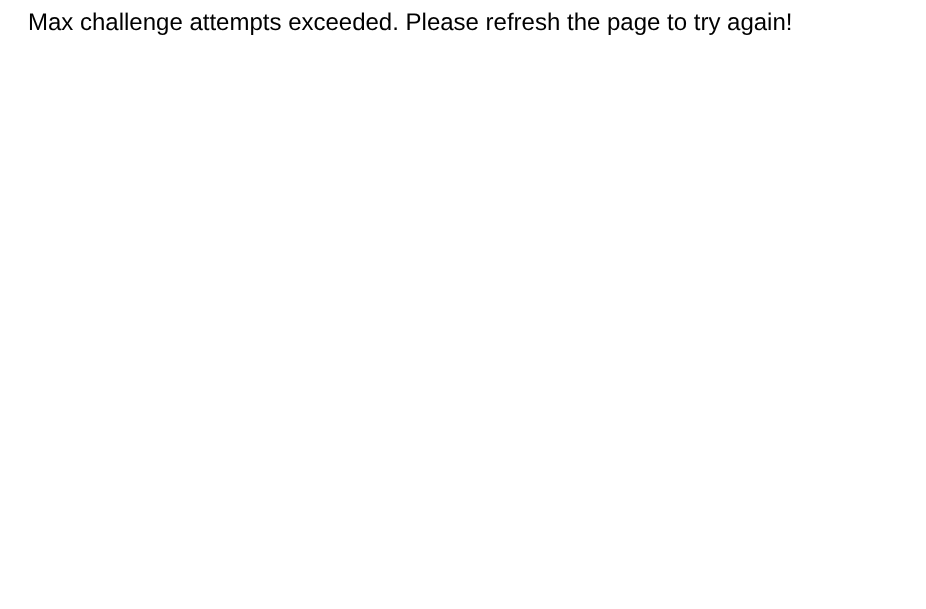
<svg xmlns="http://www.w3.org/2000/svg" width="926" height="609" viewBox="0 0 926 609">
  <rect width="100%" height="100%" fill="rgb(255,255,255)"/>
  <text x="28" y="30" font-family="Liberation Sans" font-size="24" fill="rgb(0,0,0)">Max challenge attempts exceeded. Please refresh the page to try again!</text>
</svg>
